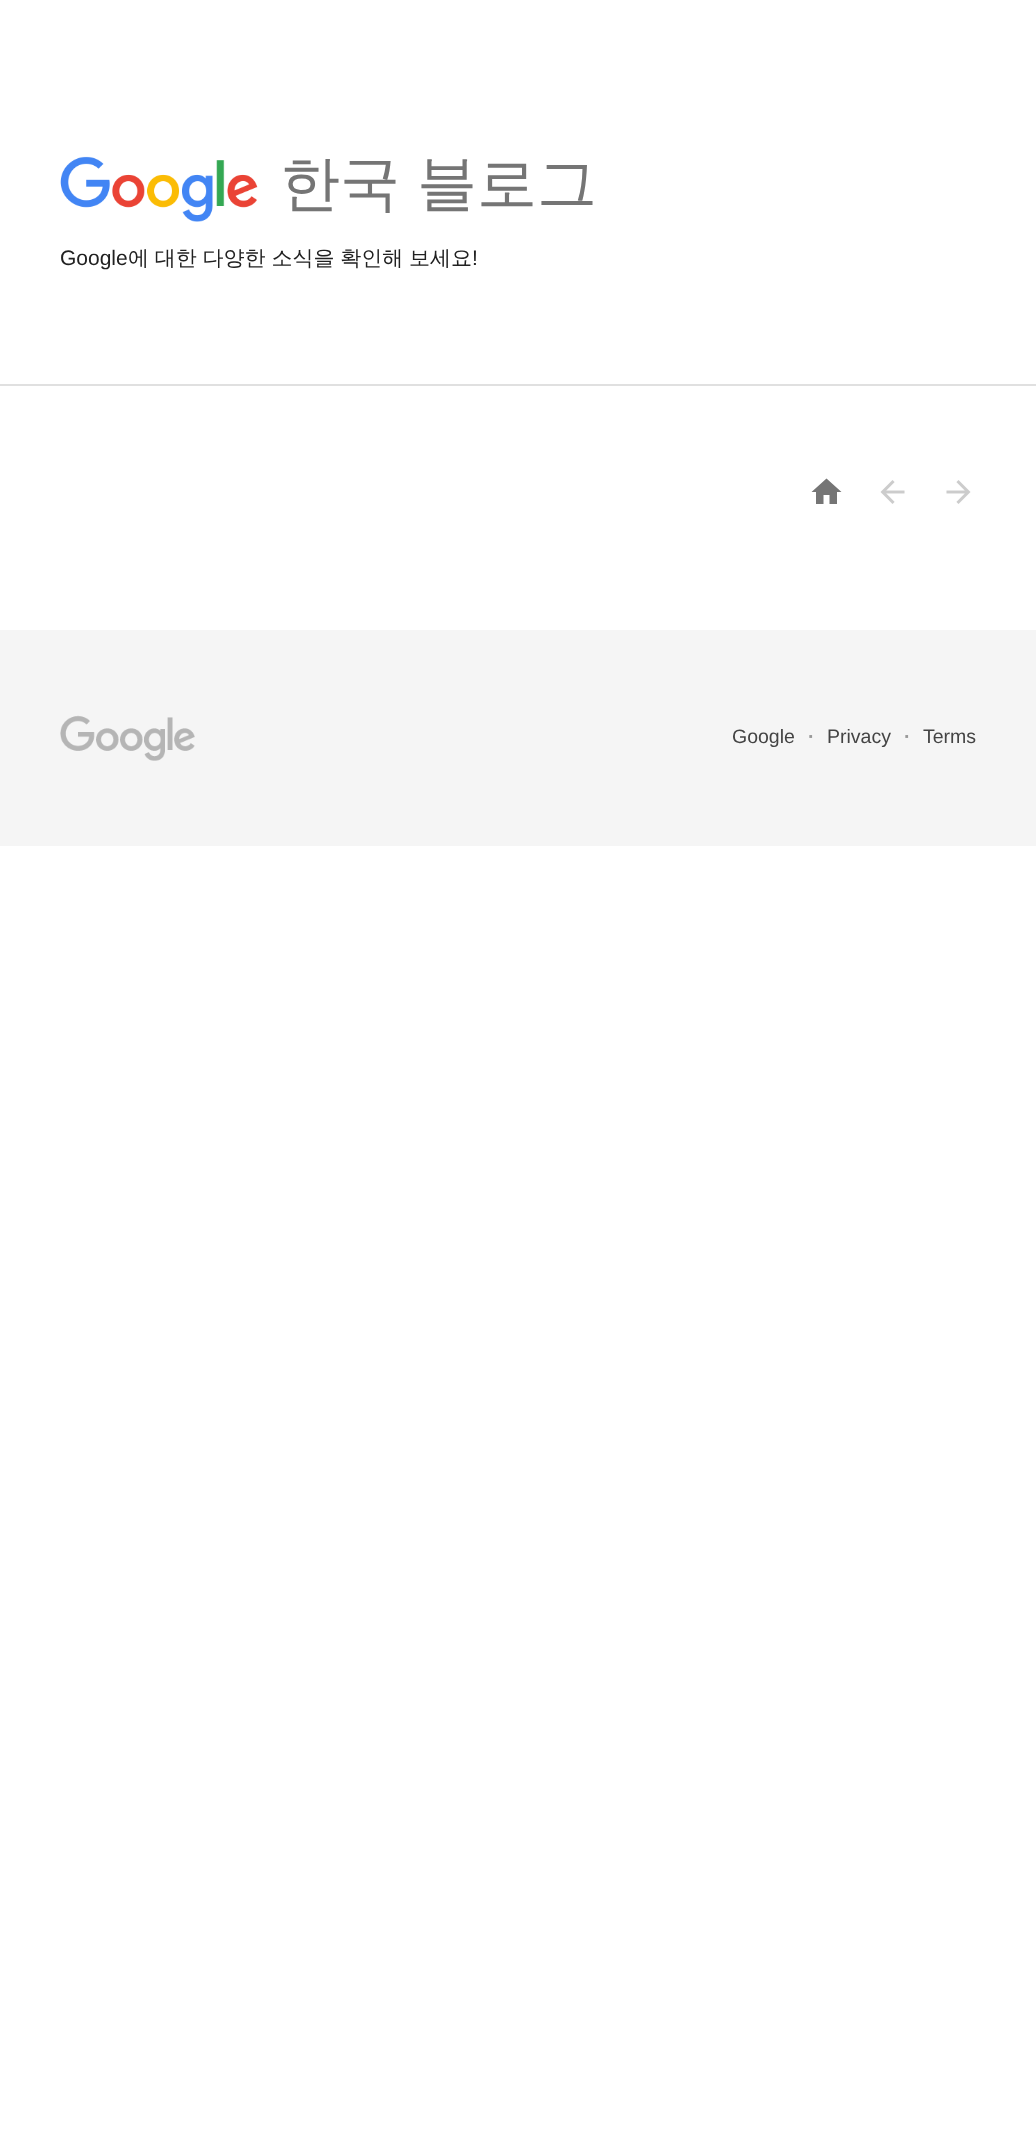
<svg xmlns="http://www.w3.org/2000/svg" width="1036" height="2132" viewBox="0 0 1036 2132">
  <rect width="100%" height="100%" fill="rgb(255,255,255)"/>
  <rect x="0" y="384" width="1036" height="2" fill="rgb(224,224,224)"/>
  <image x="60" y="156" width="198" height="66" href="pic1.png"/>
  <text x="280" y="204" word-spacing="-1" font-family="WenQuanYi Zen Hei" font-size="60" font-weight="500" fill="rgb(117,117,117)">한국 블로그</text>
  <text x="60" y="265" font-family="Liberation Sans" font-size="21" fill="rgb(33,33,33)">Google</text>
  <text x="128" y="265" word-spacing="-0.5" font-family="WenQuanYi Zen Hei" font-size="21" font-weight="500" fill="rgb(33,33,33)">에 대한 다양한 소식을 확인해 보세요</text>
  <text x="472" y="265" font-family="Liberation Sans" font-size="21" fill="rgb(33,33,33)">!</text>
  <path d="M823.5 504H816V492H811.5L826.5 478.5L841.5 492H837V504H829.5V495H823.5Z" fill="rgb(117,117,117)"/>
  <image x="880" y="480" width="25" height="24" href="pic2.png"/>
  <image x="946" y="480" width="25" height="24" href="pic3.png"/>
  <rect x="0" y="630" width="1036" height="216" fill="rgb(245,245,245)"/>
  <image x="60" y="715" width="135" height="46" href="pic4.png"/>
  <text x="732" y="743" font-family="Liberation Sans" font-size="19.5" fill="rgb(68,68,68)">Google</text>
  <text x="808" y="743" font-family="Liberation Sans" font-size="19.5" font-weight="bold" fill="rgb(153,153,153)">·</text>
  <text x="827" y="743" font-family="Liberation Sans" font-size="19.5" fill="rgb(68,68,68)">Privacy</text>
  <text x="904" y="743" font-family="Liberation Sans" font-size="19.5" font-weight="bold" fill="rgb(153,153,153)">·</text>
  <text x="923" y="743" font-family="Liberation Sans" font-size="19.5" fill="rgb(68,68,68)">Terms</text>
</svg>
